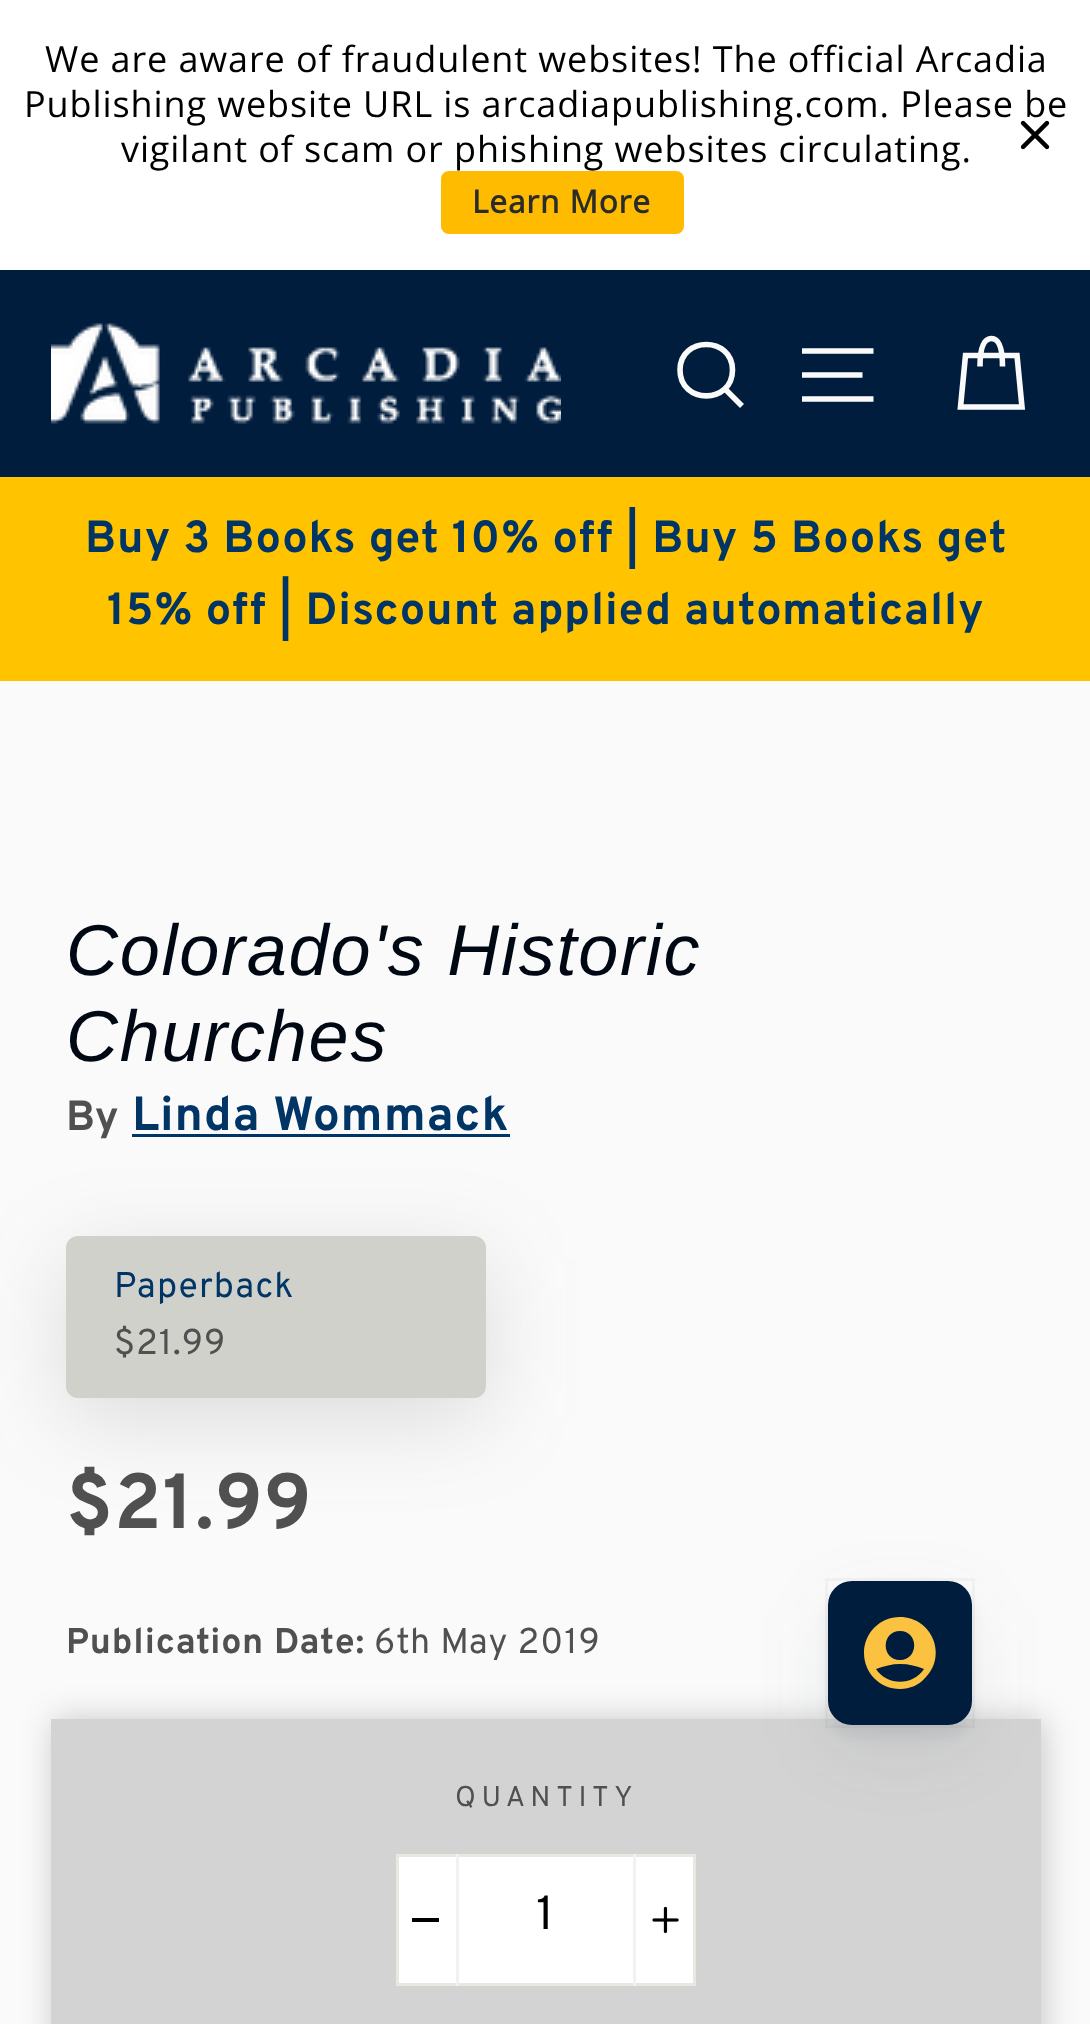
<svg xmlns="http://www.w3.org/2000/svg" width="1090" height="2024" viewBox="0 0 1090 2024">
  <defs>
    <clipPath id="clip1"><rect x="51" y="507" width="990" height="144"/></clipPath>
  </defs>
  <rect width="100%" height="100%" fill="rgb(255,255,255)"/>
  <g font-family="Open Sans" font-size="36" letter-spacing="0.9" fill="rgb(0,0,0)">
    <text x="45" y="72">We are aware of fraudulent websites! The official Arcadia</text>
    <text x="24" y="117">Publishing website URL is arcadiapublishing.com. Please be</text>
    <text x="121" y="162">vigilant of scam or phishing websites circulating.</text>
  </g>
  <rect x="441" y="171" width="243" height="63" rx="8" fill="rgb(255,187,0)"/>
  <text x="472" y="213" font-family="Open Sans" font-size="31.5" font-weight="bold" letter-spacing="0.9" fill="rgb(42,44,43)">Learn More</text>
  <image x="1020" y="120" width="30" height="30" href="pic1.png"/>
  <rect x="0" y="270" width="1090" height="207" fill="rgb(0,29,61)"/>
  <image x="51" y="323" width="510" height="101" href="pic2.png"/>
  <path d="M732.5 370C732.5 404.5 680 404.5 680 370C680 336 732.5 336 732.5 370ZM742 406L725 389" fill="none" stroke="rgb(250,250,250)" stroke-width="5.6"/>
  <path d="M802 351H873.5M802 375H862.5M802 399H873.5" fill="none" stroke="rgb(250,250,250)" stroke-width="5.6"/>
  <path d="M980 366.5C980 344.5 985 338.5 991.5 338.5C997.5 338.5 1002.5 344.5 1002.5 366.5" fill="none" stroke="rgb(250,250,250)" stroke-width="5.6"/>
  <path d="M965.5 355.5H1017L1022 407H960.5Z" fill="none" stroke="rgb(250,250,250)" stroke-width="5.6"/>
  <rect x="0" y="477" width="1090" height="204" fill="rgb(255,195,0)"/>
  <g clip-path="url(#clip1)">
    <text x="85" y="552" font-family="Overpass" font-size="45" font-weight="bold" letter-spacing="0.9" fill="rgb(0,53,102)">Buy 3 Books get 10% off | Buy 5 Books get</text>
  </g>
  <text x="107" y="624" font-family="Overpass" font-size="45" font-weight="bold" letter-spacing="0.9" fill="rgb(0,53,102)">15% off | Discount applied automatically</text>
  <rect x="0" y="681" width="1090" height="1343" fill="rgb(250,250,250)"/>
  <g font-family="Liberation Sans" font-size="72" font-style="italic" letter-spacing="1.75" fill="rgb(0,8,20)">
    <text>
      <tspan x="66" y="975">Colorado's Historic</tspan>
      <tspan x="66" y="1061">Churches</tspan>
    </text>
  </g>
  <text x="66" y="1130" font-family="Overpass" font-size="42" font-weight="bold" letter-spacing="0.9" fill="rgb(80,80,80)">By</text>
  <text x="132" y="1130" font-family="Overpass" font-size="48" font-weight="bold" letter-spacing="0.9" fill="rgb(0,53,102)">Linda Wommack</text>
  <rect x="132" y="1134" width="378" height="3" fill="rgb(0,53,102)"/>
  <rect x="66" y="1257" width="420" height="162" rx="12" fill="rgba(100,100,111,0.2)" filter="blur(43.5px)"/>
  <rect x="66" y="1236" width="420" height="162" rx="12" fill="rgb(208,209,203)"/>
  <text x="114" y="1297" font-family="Overpass" font-size="35.75" letter-spacing="0.9" fill="rgb(0,53,102)">Paperback</text>
  <text x="114" y="1354" font-family="Overpass" font-size="35.75" letter-spacing="0.9" fill="rgb(80,80,80)">$21.99</text>
  <text x="66" y="1528" font-family="Overpass" font-size="78" font-weight="bold" letter-spacing="0.9" fill="rgb(80,80,80)">$21.99</text>
  <text x="66" y="1653" font-family="Overpass" font-size="35.75" font-weight="bold" letter-spacing="0.9" fill="rgb(80,80,80)">Publication Date:</text>
  <text x="374" y="1653" font-family="Overpass" font-size="35.75" letter-spacing="0.9" fill="rgb(80,80,80)">6th May 2019</text>
  <rect x="54" y="1719" width="990" height="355" fill="rgba(0,0,0,0.2)" filter="blur(16.5px)"/>
  <rect x="51" y="1719" width="990" height="305" fill="rgb(211,211,211)"/>
  <text x="455" y="1806" font-family="Overpass" font-size="28.5" letter-spacing="5.75" fill="rgb(80,80,80)">QUANTITY</text>
  <rect x="397.5" y="1855.5" width="297" height="129" fill="rgb(255,255,255)" stroke="rgb(232,232,225)" stroke-width="3"/>
  <rect x="456" y="1854" width="3" height="132" fill="rgb(242,242,242)"/>
  <rect x="412" y="1918" width="27" height="4" fill="rgb(0,0,0)"/>
  <text x="536" y="1929" font-family="Overpass" font-size="48" letter-spacing="1" fill="rgb(0,0,0)">1</text>
  <rect x="633" y="1854" width="3" height="132" fill="rgb(242,242,242)"/>
  <image x="652" y="1906" width="27" height="28" href="pic3.png"/>
  <rect x="828" y="1605" width="144" height="144" rx="24" fill="rgba(55,63,71,0.08)" filter="blur(36px)"/>
  <rect x="828" y="1593" width="144" height="144" rx="24" fill="rgba(55,63,71,0.08)" filter="blur(6px)"/>
  <rect x="826.5" y="1579.5" width="147" height="147" fill="none" stroke="rgba(55,63,71,0.04)" stroke-width="3"/>
  <rect x="828" y="1581" width="144" height="144" rx="24" fill="rgb(0,29,62)"/>
  <path d="M900 1617C880 1617 864 1633 864 1653C864 1673 880 1689 900 1689C910 1689 919 1685 925 1678C948 1656 932 1617 900 1617ZM900 1664C909 1664 917 1666 924 1669C913 1686 887 1686 876 1669C884 1666 892 1664 900 1664ZM900 1660C919 1660 919 1631 900 1631C881 1631 881 1660 900 1660Z" fill="rgb(250,194,64)" fill-rule="evenodd"/>
</svg>
